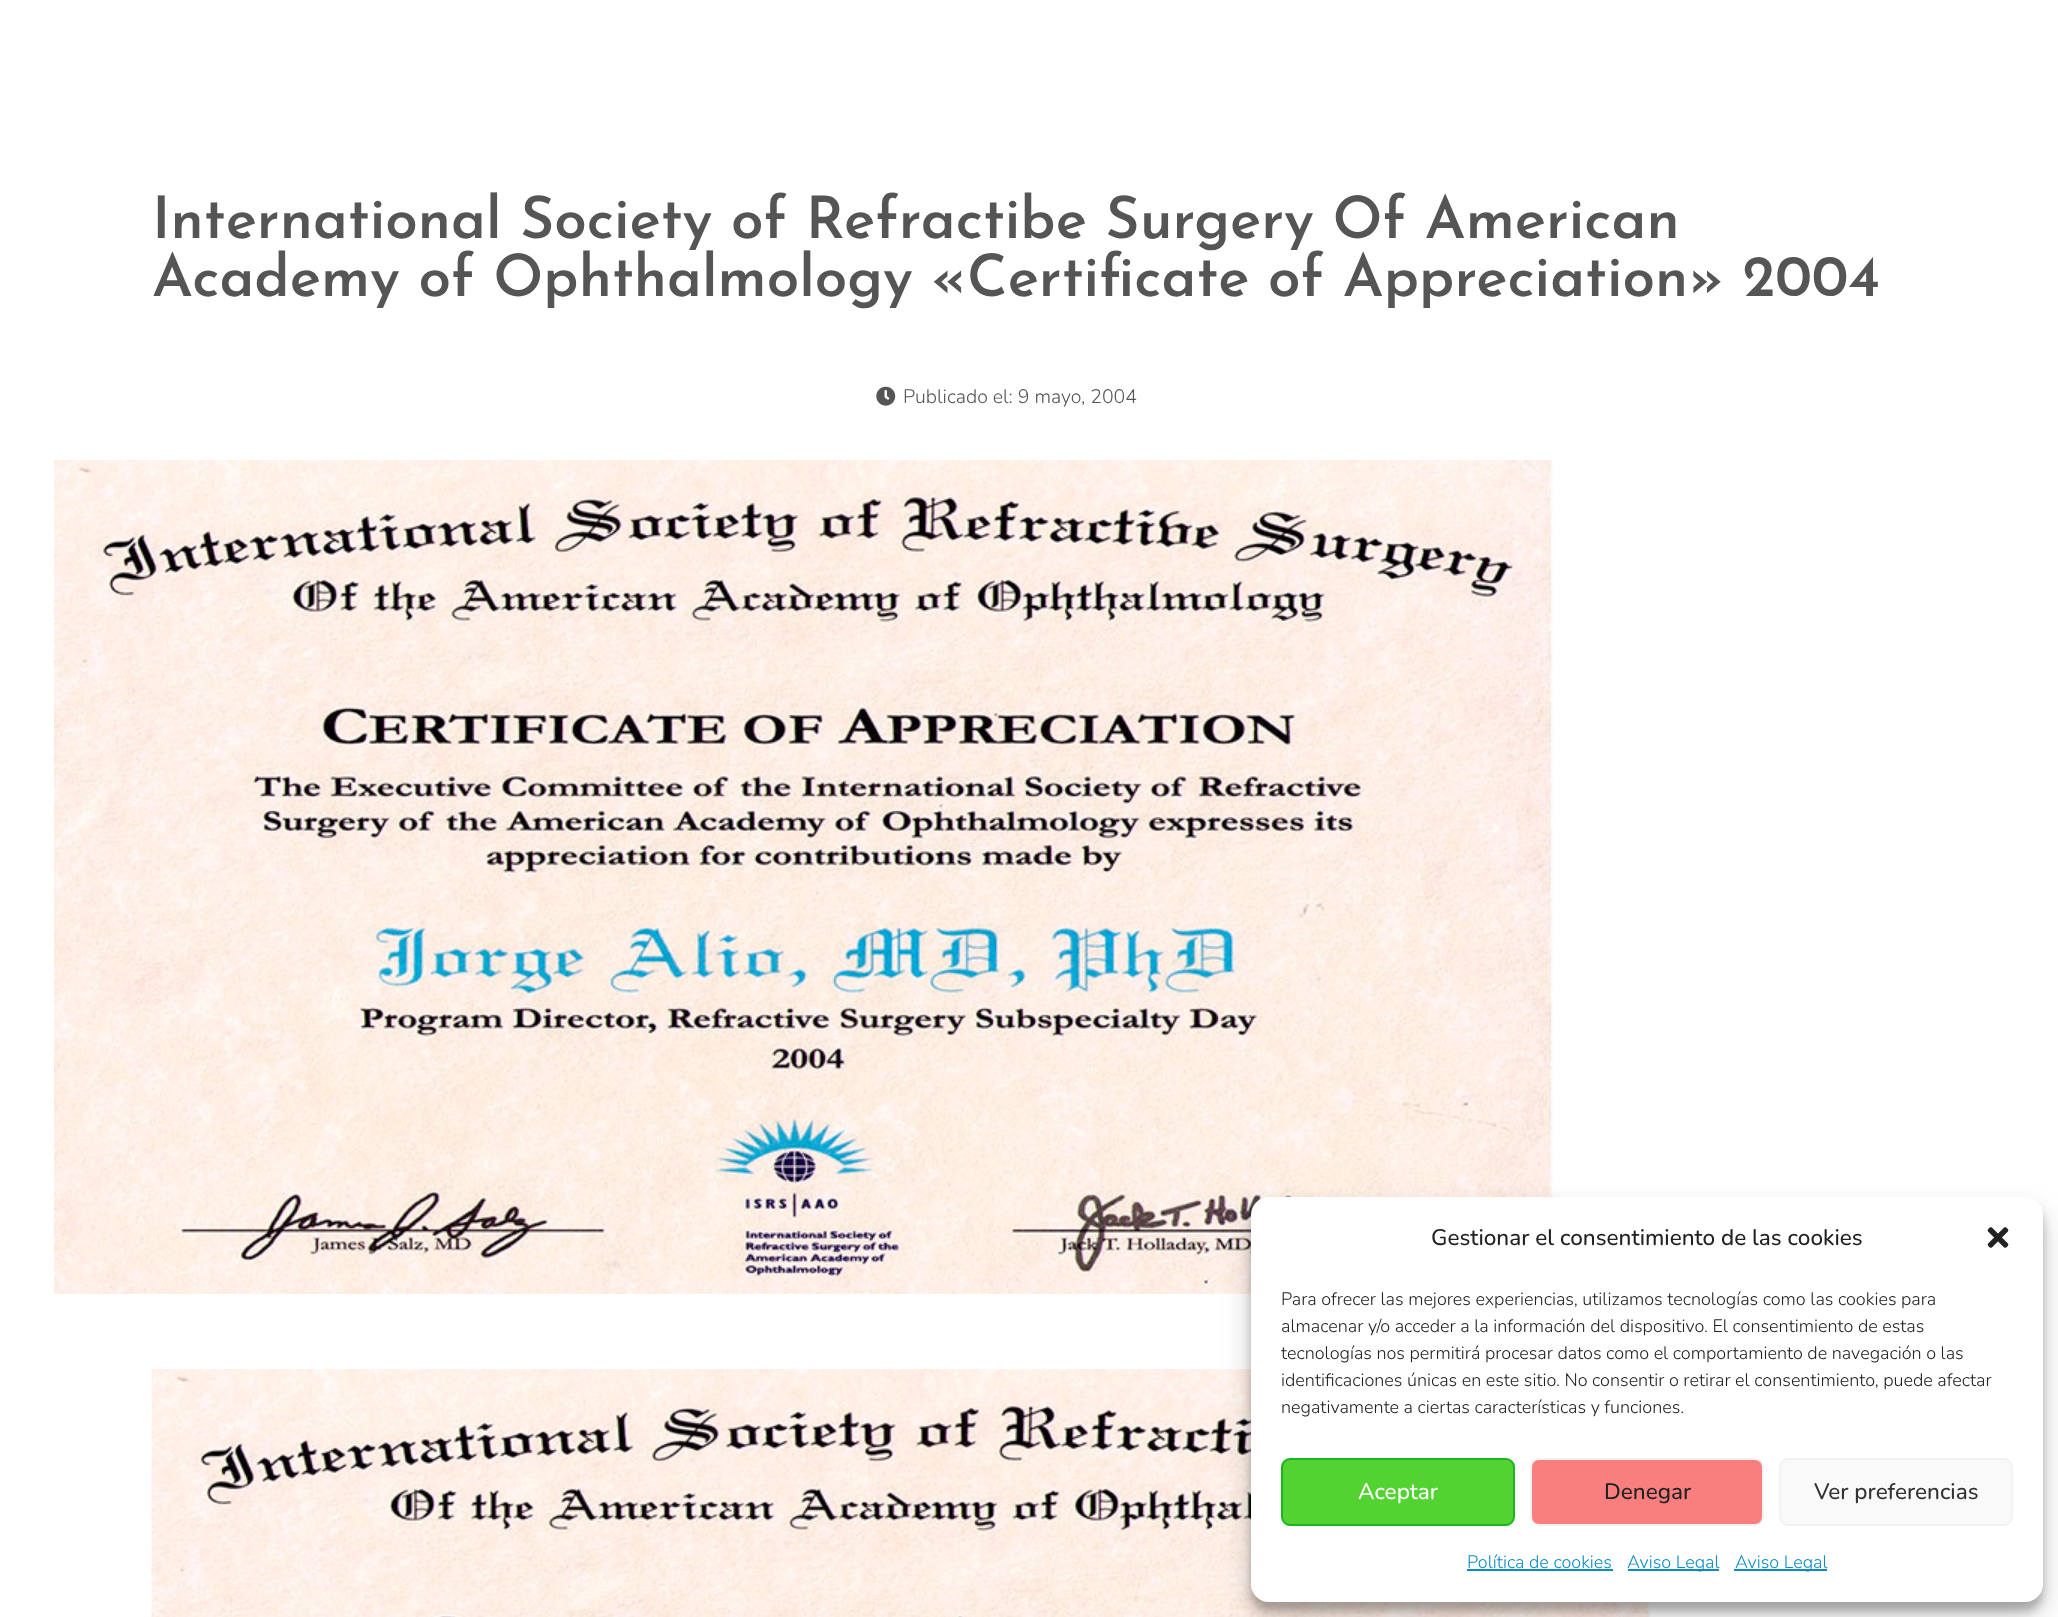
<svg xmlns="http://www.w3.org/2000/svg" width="2058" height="1617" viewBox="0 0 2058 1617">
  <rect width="100%" height="100%" fill="rgb(255,255,255)"/>
  <g font-family="Josefin Sans" font-size="58.5" font-weight="600" fill="rgb(85,85,85)">
    <text>
      <tspan x="152" y="238">International Society of Refractibe Surgery Of American</tspan>
      <tspan x="152" y="296">Academy of Ophthalmology «Certificate of Appreciation» 2004</tspan>
    </text>
  </g>
  <image x="876" y="386" width="20" height="20" href="pic1.png"/>
  <text x="903" y="403" font-family="Nunito" font-size="19.5" font-weight="300" fill="rgb(85,85,85)">Publicado el: 9 mayo, 2004</text>
  <image x="54" y="460" width="1500" height="834" href="pic2.png"/>
  <image x="151" y="1369" width="1501" height="248" href="pic3.png"/>
  <rect x="1251" y="1206" width="792" height="405" rx="18" fill="rgba(0,0,0,0.23)" filter="blur(4.5px)"/>
  <rect x="1251" y="1212" width="792" height="405" rx="18" fill="rgba(0,0,0,0.19)" filter="blur(15px)"/>
  <rect x="1251" y="1197" width="792" height="405" rx="18" fill="rgb(255,255,255)"/>
  <text x="1431" y="1245" font-family="Nunito" font-size="22.5" font-weight="500" fill="rgb(34,34,34)">Gestionar el consentimiento de las cookies</text>
  <image x="1987" y="1227" width="22" height="21" href="pic4.png"/>
  <g font-family="Nunito" font-size="18" font-weight="300" fill="rgb(34,34,34)">
    <text>
      <tspan x="1281" y="1305">Para ofrecer las mejores experiencias, utilizamos tecnologías como las cookies para</tspan>
      <tspan x="1281" y="1332">almacenar y/o acceder a la información del dispositivo. El consentimiento de estas</tspan>
      <tspan x="1281" y="1359">tecnologías nos permitirá procesar datos como el comportamiento de navegación o las</tspan>
      <tspan x="1281" y="1386">identificaciones únicas en este sitio. No consentir o retirar el consentimiento, puede afectar</tspan>
      <tspan x="1281" y="1413">negativamente a ciertas características y funciones.</tspan>
    </text>
  </g>
  <rect x="1282" y="1459" width="232" height="66" rx="8" fill="rgb(82,211,50)" stroke="rgb(28,181,34)" stroke-width="2"/>
  <text x="1358" y="1499" font-family="Nunito" font-size="22.5" font-weight="500" fill="rgb(255,255,255)">Aceptar</text>
  <rect x="1531" y="1459" width="232" height="66" rx="8" fill="rgb(249,127,127)" stroke="rgb(242,242,242)" stroke-width="2"/>
  <text x="1604" y="1499" font-family="Nunito" font-size="22.5" font-weight="500" fill="rgb(34,34,34)">Denegar</text>
  <rect x="1780" y="1459" width="232" height="66" rx="8" fill="rgb(249,249,249)" stroke="rgb(242,242,242)" stroke-width="2"/>
  <text x="1814" y="1499" font-family="Nunito" font-size="22.5" font-weight="500" fill="rgb(51,51,51)">Ver preferencias</text>
  <text x="1467" y="1568" font-family="Nunito" font-size="18" font-weight="300" fill="rgb(11,139,194)">Política de cookies</text>
  <rect x="1467" y="1569" width="146" height="2" fill="rgb(11,139,194)"/>
  <rect x="1628" y="1569" width="91" height="2" fill="rgb(11,139,194)"/>
  <text x="1627" y="1568" font-family="Nunito" font-size="18" font-weight="300" fill="rgb(11,139,194)">Aviso Legal</text>
  <rect x="1734" y="1569" width="93" height="2" fill="rgb(11,139,194)"/>
  <text x="1735" y="1568" font-family="Nunito" font-size="18" font-weight="300" fill="rgb(11,139,194)">Aviso Legal</text>
</svg>
